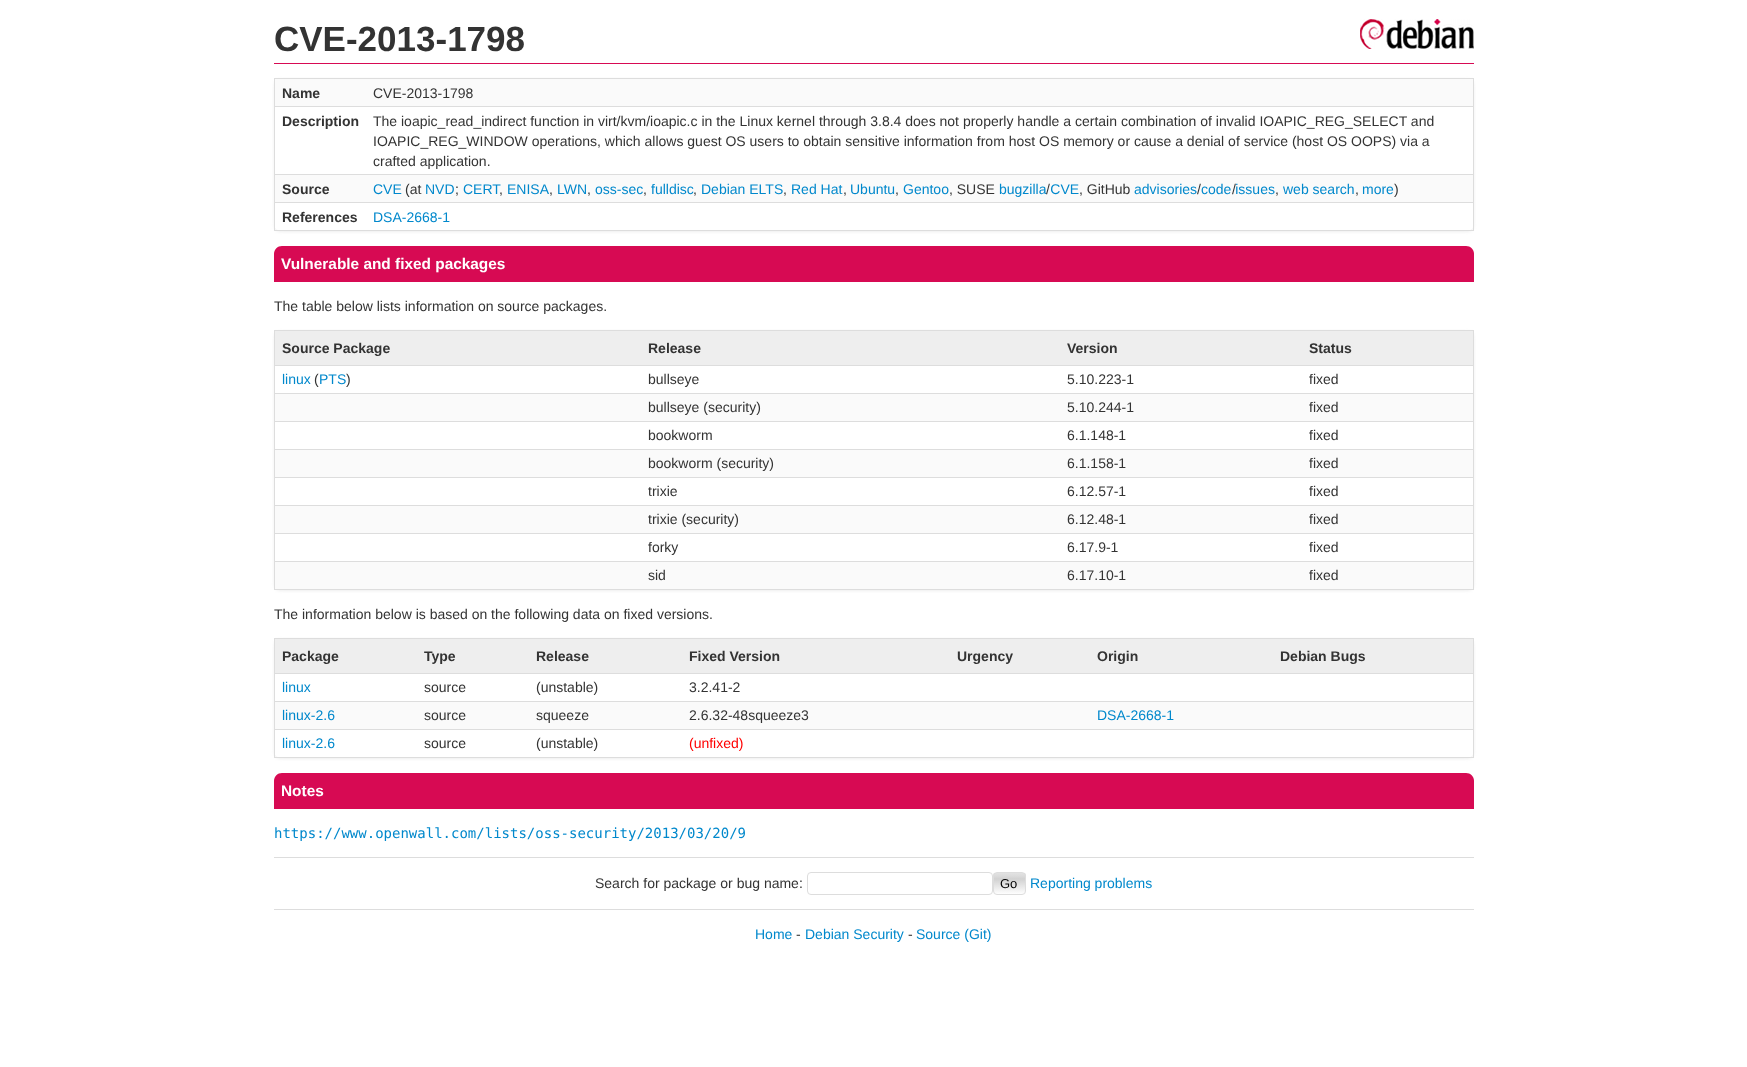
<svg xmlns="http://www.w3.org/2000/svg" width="1747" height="1067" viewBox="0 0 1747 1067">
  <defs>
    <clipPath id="clip1"><path d="M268 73H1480V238H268ZM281 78H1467C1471 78 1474 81 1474 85V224C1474 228 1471 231 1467 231H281C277 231 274 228 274 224V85C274 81 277 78 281 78Z" clip-rule="evenodd"/></clipPath>
    <clipPath id="clip2"><path d="M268 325H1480V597H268ZM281 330H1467C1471 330 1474 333 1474 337V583C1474 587 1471 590 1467 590H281C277 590 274 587 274 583V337C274 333 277 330 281 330Z" clip-rule="evenodd"/></clipPath>
    <clipPath id="clip3"><path d="M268 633H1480V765H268ZM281 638H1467C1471 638 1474 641 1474 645V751C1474 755 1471 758 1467 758H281C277 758 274 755 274 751V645C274 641 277 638 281 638Z" clip-rule="evenodd"/></clipPath>
    <clipPath id="clip4"><rect x="993" y="872" width="33" height="23" rx="4"/></clipPath>
    <linearGradient id="g1" gradientUnits="userSpaceOnUse" x1="1010" y1="873" x2="1010" y2="894"><stop offset="0" stop-color="rgb(226,226,226)"/><stop offset="0.15" stop-color="rgb(219,219,219)"/><stop offset="0.28" stop-color="rgb(209,209,209)"/><stop offset="1" stop-color="rgb(254,254,254)"/></linearGradient>
  </defs>
  <rect width="100%" height="100%" fill="rgb(255,255,255)"/>
  <image x="1360" y="19" width="114" height="30" href="pic1.png"/>
  <rect x="274" y="63" width="1200" height="1" fill="rgb(215,10,83)"/>
  <text x="274" y="51" font-family="Liberation Sans" font-size="35" font-weight="bold" fill="rgb(51,51,51)">CVE-2013-1798</text>
  <g clip-path="url(#clip1)">
    <rect x="274" y="79" width="1200" height="153" rx="7" fill="rgb(238,238,238)" filter="blur(1.5px)"/>
  </g>
  <rect x="274" y="78" width="1200" height="1" fill="rgb(221,221,221)"/>
  <rect x="1473" y="78" width="1" height="153" fill="rgb(221,221,221)"/>
  <rect x="274" y="230" width="1200" height="1" fill="rgb(221,221,221)"/>
  <rect x="274" y="78" width="1" height="153" fill="rgb(221,221,221)"/>
  <rect x="275" y="79" width="1198" height="27" fill="rgb(250,250,250)"/>
  <text x="282" y="98" font-family="Liberation Sans" font-size="14" font-weight="bold" fill="rgb(51,51,51)">Name</text>
  <rect x="274" y="106" width="1200" height="1" fill="rgb(221,221,221)"/>
  <text x="373" y="98" font-family="Liberation Sans" font-size="14" fill="rgb(51,51,51)">CVE-2013-1798</text>
  <text x="282" y="126" font-family="Liberation Sans" font-size="14" font-weight="bold" fill="rgb(51,51,51)">Description</text>
  <rect x="274" y="174" width="1200" height="1" fill="rgb(221,221,221)"/>
  <g font-family="Liberation Sans" font-size="14" fill="rgb(51,51,51)">
    <text>
      <tspan x="373" y="126">The ioapic_read_indirect function in virt/kvm/ioapic.c in the Linux kernel through 3.8.4 does not properly handle a certain combination of invalid IOAPIC_REG_SELECT and</tspan>
      <tspan x="373" y="146">IOAPIC_REG_WINDOW operations, which allows guest OS users to obtain sensitive information from host OS memory or cause a denial of service (host OS OOPS) via a</tspan>
      <tspan x="373" y="166">crafted application.</tspan>
    </text>
  </g>
  <rect x="275" y="175" width="1198" height="27" fill="rgb(250,250,250)"/>
  <text x="282" y="194" font-family="Liberation Sans" font-size="14" font-weight="bold" fill="rgb(51,51,51)">Source</text>
  <rect x="274" y="202" width="1200" height="1" fill="rgb(221,221,221)"/>
  <text x="405" y="194" font-family="Liberation Sans" font-size="14" fill="rgb(51,51,51)">(at</text>
  <g font-family="Liberation Sans" font-size="14" fill="rgb(0,136,204)">
    <text x="651" y="194">fulldisc</text>
    <text x="701" y="194">Debian ELTS</text>
    <text x="791" y="194">Red Hat</text>
    <text x="850" y="194">Ubuntu</text>
    <text x="999" y="194">bugzilla CVE</text>
  </g>
  <g font-family="Liberation Sans" font-size="14" fill="rgb(51,51,51)">
    <text x="1046" y="194">/</text>
    <text x="1079" y="194">, GitHub</text>
  </g>
  <text x="1134" y="194" font-family="Liberation Sans" font-size="14" fill="rgb(0,136,204)">advisories</text>
  <text x="1197" y="194" font-family="Liberation Sans" font-size="14" fill="rgb(51,51,51)">/</text>
  <g font-family="Liberation Sans" font-size="14" fill="rgb(0,136,204)">
    <text x="1201" y="194">code issues</text>
    <text x="373" y="194">CVE</text>
    <text x="425" y="194">NVD</text>
  </g>
  <text x="455" y="194" font-family="Liberation Sans" font-size="14" fill="rgb(51,51,51)">;</text>
  <g font-family="Liberation Sans" font-size="14" fill="rgb(0,136,204)">
    <text x="463" y="194">CERT</text>
    <text x="507" y="194">ENISA</text>
    <text x="557" y="194">LWN</text>
    <text x="595" y="194">oss-sec</text>
    <text x="903" y="194">Gentoo</text>
  </g>
  <g font-family="Liberation Sans" font-size="14" fill="rgb(51,51,51)">
    <text x="949" y="194">, SUSE</text>
    <text x="1232" y="194">/</text>
  </g>
  <g font-family="Liberation Sans" font-size="14" fill="rgb(0,136,204)">
    <text x="1283" y="194">web search</text>
    <text x="1362" y="194">more</text>
  </g>
  <g font-family="Liberation Sans" font-size="14" fill="rgb(51,51,51)">
    <text x="1394" y="194">)</text>
    <text x="499" y="194">,</text>
    <text x="549" y="194">,</text>
    <text x="587" y="194">,</text>
    <text x="643" y="194">,</text>
    <text x="693" y="194">,</text>
    <text x="783" y="194">,</text>
    <text x="843" y="194">,</text>
    <text x="895" y="194">,</text>
    <text x="1275" y="194">,</text>
    <text x="1355" y="194">,</text>
  </g>
  <text x="282" y="222" font-family="Liberation Sans" font-size="14" font-weight="bold" fill="rgb(51,51,51)">References</text>
  <text x="373" y="222" font-family="Liberation Sans" font-size="14" fill="rgb(0,136,204)">DSA-2668-1</text>
  <path d="M282 246H1466C1470.5 246 1474 249.5 1474 254V282H274V254C274 249.5 277.5 246 282 246Z" fill="rgb(215,10,83)"/>
  <text x="281" y="269" font-family="Liberation Sans" font-size="15.4" font-weight="bold" fill="rgb(255,255,255)">Vulnerable and fixed packages</text>
  <text x="274" y="311" font-family="Liberation Sans" font-size="14" fill="rgb(51,51,51)">The table below lists information on source packages.</text>
  <g clip-path="url(#clip2)">
    <rect x="274" y="331" width="1200" height="260" rx="7" fill="rgb(238,238,238)" filter="blur(1.5px)"/>
  </g>
  <rect x="274" y="330" width="1200" height="1" fill="rgb(221,221,221)"/>
  <rect x="1473" y="330" width="1" height="260" fill="rgb(221,221,221)"/>
  <rect x="274" y="589" width="1200" height="1" fill="rgb(221,221,221)"/>
  <rect x="274" y="330" width="1" height="260" fill="rgb(221,221,221)"/>
  <rect x="275" y="331" width="1198" height="34" fill="rgb(238,238,238)"/>
  <g font-family="Liberation Sans" font-size="14" font-weight="bold" fill="rgb(51,51,51)">
    <text x="282" y="353">Source Package</text>
    <text x="648" y="353">Release</text>
    <text x="1067" y="353">Version</text>
  </g>
  <rect x="274" y="365" width="1200" height="1" fill="rgb(221,221,221)"/>
  <text x="1309" y="353" font-family="Liberation Sans" font-size="14" font-weight="bold" fill="rgb(51,51,51)">Status</text>
  <text x="282" y="384" font-family="Liberation Sans" font-size="14" fill="rgb(0,136,204)">linux</text>
  <text x="314" y="384" font-family="Liberation Sans" font-size="14" fill="rgb(51,51,51)">(</text>
  <text x="319" y="384" font-family="Liberation Sans" font-size="14" fill="rgb(0,136,204)">PTS</text>
  <g font-family="Liberation Sans" font-size="14" fill="rgb(51,51,51)">
    <text x="346" y="384">)</text>
    <text x="648" y="384">bullseye</text>
    <text x="1067" y="384">5.10.223-1</text>
  </g>
  <rect x="274" y="393" width="1200" height="1" fill="rgb(221,221,221)"/>
  <text x="1309" y="384" font-family="Liberation Sans" font-size="14" fill="rgb(51,51,51)">fixed</text>
  <rect x="275" y="394" width="1198" height="27" fill="rgb(250,250,250)"/>
  <g font-family="Liberation Sans" font-size="14" fill="rgb(51,51,51)">
    <text x="648" y="412">bullseye (security)</text>
    <text x="1067" y="412">5.10.244-1</text>
  </g>
  <rect x="274" y="421" width="1200" height="1" fill="rgb(221,221,221)"/>
  <g font-family="Liberation Sans" font-size="14" fill="rgb(51,51,51)">
    <text x="1309" y="412">fixed</text>
    <text x="648" y="440">bookworm</text>
    <text x="1067" y="440">6.1.148-1</text>
  </g>
  <rect x="274" y="449" width="1200" height="1" fill="rgb(221,221,221)"/>
  <text x="1309" y="440" font-family="Liberation Sans" font-size="14" fill="rgb(51,51,51)">fixed</text>
  <rect x="275" y="450" width="1198" height="27" fill="rgb(250,250,250)"/>
  <g font-family="Liberation Sans" font-size="14" fill="rgb(51,51,51)">
    <text x="648" y="468">bookworm (security)</text>
    <text x="1067" y="468">6.1.158-1</text>
  </g>
  <rect x="274" y="477" width="1200" height="1" fill="rgb(221,221,221)"/>
  <g font-family="Liberation Sans" font-size="14" fill="rgb(51,51,51)">
    <text x="1309" y="468">fixed</text>
    <text x="648" y="496">trixie</text>
    <text x="1067" y="496">6.12.57-1</text>
  </g>
  <rect x="274" y="505" width="1200" height="1" fill="rgb(221,221,221)"/>
  <text x="1309" y="496" font-family="Liberation Sans" font-size="14" fill="rgb(51,51,51)">fixed</text>
  <rect x="275" y="506" width="1198" height="27" fill="rgb(250,250,250)"/>
  <g font-family="Liberation Sans" font-size="14" fill="rgb(51,51,51)">
    <text x="648" y="524">trixie (security)</text>
    <text x="1067" y="524">6.12.48-1</text>
  </g>
  <rect x="274" y="533" width="1200" height="1" fill="rgb(221,221,221)"/>
  <g font-family="Liberation Sans" font-size="14" fill="rgb(51,51,51)">
    <text x="1309" y="524">fixed</text>
    <text x="648" y="552">forky</text>
    <text x="1067" y="552">6.17.9-1</text>
  </g>
  <rect x="274" y="561" width="1200" height="1" fill="rgb(221,221,221)"/>
  <text x="1309" y="552" font-family="Liberation Sans" font-size="14" fill="rgb(51,51,51)">fixed</text>
  <rect x="275" y="562" width="1198" height="27" fill="rgb(250,250,250)"/>
  <g font-family="Liberation Sans" font-size="14" fill="rgb(51,51,51)">
    <text x="648" y="580">sid</text>
    <text x="1067" y="580">6.17.10-1</text>
    <text x="1309" y="580">fixed</text>
    <text x="274" y="619">The information below is based on the following data on fixed versions.</text>
  </g>
  <g clip-path="url(#clip3)">
    <rect x="274" y="639" width="1200" height="120" rx="7" fill="rgb(238,238,238)" filter="blur(1.5px)"/>
  </g>
  <rect x="274" y="638" width="1200" height="1" fill="rgb(221,221,221)"/>
  <rect x="1473" y="638" width="1" height="120" fill="rgb(221,221,221)"/>
  <rect x="274" y="757" width="1200" height="1" fill="rgb(221,221,221)"/>
  <rect x="274" y="638" width="1" height="120" fill="rgb(221,221,221)"/>
  <rect x="275" y="639" width="1198" height="34" fill="rgb(238,238,238)"/>
  <g font-family="Liberation Sans" font-size="14" font-weight="bold" fill="rgb(51,51,51)">
    <text x="282" y="661">Package</text>
    <text x="424" y="661">Type</text>
    <text x="536" y="661">Release</text>
    <text x="689" y="661">Fixed Version</text>
    <text x="957" y="661">Urgency</text>
    <text x="1097" y="661">Origin</text>
  </g>
  <rect x="274" y="673" width="1200" height="1" fill="rgb(221,221,221)"/>
  <text x="1280" y="661" font-family="Liberation Sans" font-size="14" font-weight="bold" fill="rgb(51,51,51)">Debian Bugs</text>
  <text x="282" y="692" font-family="Liberation Sans" font-size="14" fill="rgb(0,136,204)">linux</text>
  <g font-family="Liberation Sans" font-size="14" fill="rgb(51,51,51)">
    <text x="424" y="692">source</text>
    <text x="536" y="692">(unstable)</text>
    <text x="689" y="692">3.2.41-2</text>
  </g>
  <rect x="274" y="701" width="1200" height="1" fill="rgb(221,221,221)"/>
  <rect x="275" y="702" width="1198" height="27" fill="rgb(250,250,250)"/>
  <text x="282" y="720" font-family="Liberation Sans" font-size="14" fill="rgb(0,136,204)">linux-2.6</text>
  <g font-family="Liberation Sans" font-size="14" fill="rgb(51,51,51)">
    <text x="424" y="720">source</text>
    <text x="536" y="720">squeeze</text>
    <text x="689" y="720">2.6.32-48squeeze3</text>
  </g>
  <text x="1097" y="720" font-family="Liberation Sans" font-size="14" fill="rgb(0,136,204)">DSA-2668-1</text>
  <rect x="274" y="729" width="1200" height="1" fill="rgb(221,221,221)"/>
  <text x="282" y="748" font-family="Liberation Sans" font-size="14" fill="rgb(0,136,204)">linux-2.6</text>
  <g font-family="Liberation Sans" font-size="14" fill="rgb(51,51,51)">
    <text x="424" y="748">source</text>
    <text x="536" y="748">(unstable)</text>
  </g>
  <text x="689" y="748" font-family="Liberation Sans" font-size="14" fill="rgb(255,0,0)">(unfixed)</text>
  <path d="M282 773H1466C1470.5 773 1474 776.5 1474 781V809H274V781C274 776.5 277.5 773 282 773Z" fill="rgb(215,10,83)"/>
  <text x="281" y="796" font-family="Liberation Sans" font-size="15.4" font-weight="bold" fill="rgb(255,255,255)">Notes</text>
  <text x="274" y="838" font-family="DejaVu Sans Mono" font-size="14" fill="rgb(0,136,204)">https://www.openwall.com/lists/oss-security/2013/03/20/9</text>
  <rect x="274" y="857" width="1200" height="1" fill="rgb(221,221,221)"/>
  <rect x="274" y="909" width="1200" height="1" fill="rgb(221,221,221)"/>
  <text x="595" y="888" font-family="Liberation Sans" font-size="14" fill="rgb(51,51,51)">Search for package or bug name:</text>
  <rect x="807.5" y="872.5" width="185" height="22" rx="3.5" fill="none" stroke="rgb(221,221,221)"/>
  <g clip-path="url(#clip4)">
    <rect x="993" y="873" width="33" height="21" fill="url(#g1)"/>
  </g>
  <rect x="993.5" y="872.5" width="32" height="22" rx="3.5" fill="none" stroke="rgb(221,221,221)"/>
  <text x="1000" y="888" font-family="Liberation Sans" font-size="13" fill="rgb(0,0,0)">Go</text>
  <g font-family="Liberation Sans" font-size="14" fill="rgb(0,136,204)">
    <text x="1030" y="888">Reporting problems</text>
    <text x="755" y="939">Home</text>
  </g>
  <text x="796" y="939" font-family="Liberation Sans" font-size="14" fill="rgb(51,51,51)">-</text>
  <text x="805" y="939" font-family="Liberation Sans" font-size="14" fill="rgb(0,136,204)">Debian Security</text>
  <text x="908" y="939" font-family="Liberation Sans" font-size="14" fill="rgb(51,51,51)">-</text>
  <text x="916" y="939" font-family="Liberation Sans" font-size="14" fill="rgb(0,136,204)">Source (Git)</text>
</svg>
